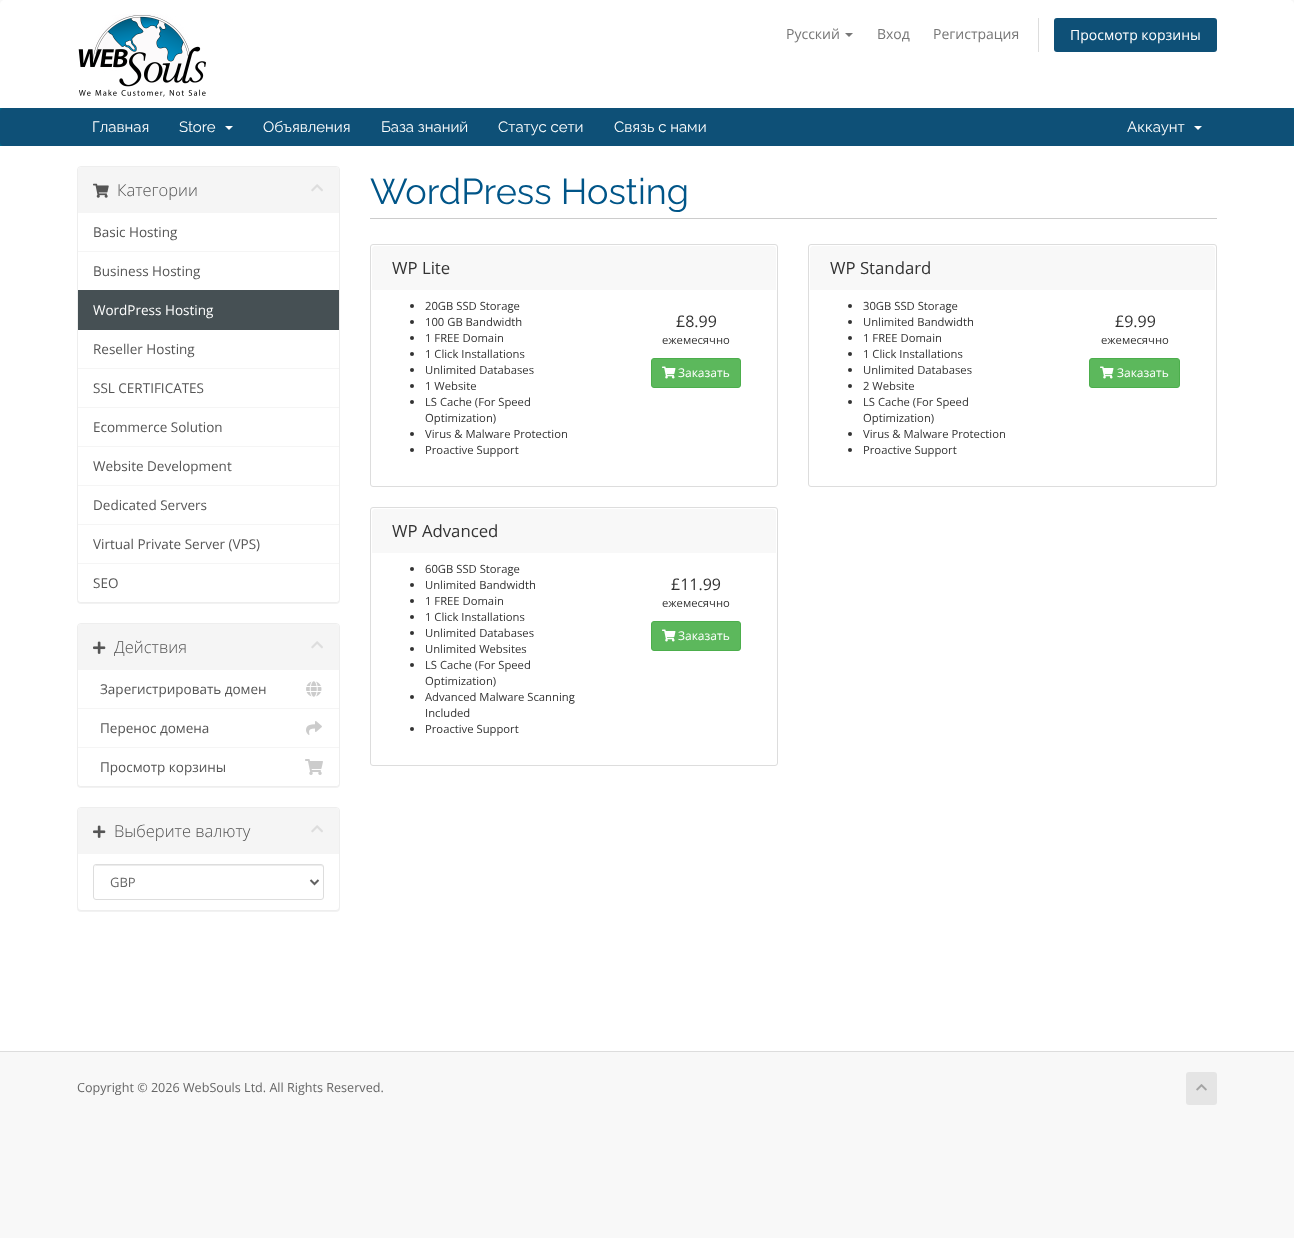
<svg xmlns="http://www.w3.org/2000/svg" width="1294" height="1238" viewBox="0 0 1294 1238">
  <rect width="100%" height="100%" fill="rgb(248,248,248)"/>
  <path d="M5 0H1289C1292 0 1294 2 1294 5V108H0V5C0 2 2 0 5 0Z" fill="rgb(255,255,255)"/>
  <image x="78" y="14" width="128" height="83" href="pic1.png"/>
  <text x="786" y="39" font-family="Open Sans" font-size="14" fill="rgb(119,119,119)">Русский</text>
  <path d="M845 33H853L849 37Z" fill="rgb(119,119,119)"/>
  <g font-family="Open Sans" font-size="14" fill="rgb(119,119,119)">
    <text x="877" y="39">Вход</text>
    <text x="933" y="39">Регистрация</text>
  </g>
  <rect x="1038" y="18" width="1" height="34" fill="rgb(221,221,221)"/>
  <rect x="1054" y="18" width="163" height="34" rx="3" fill="rgb(14,80,119)"/>
  <text x="1070" y="40" font-family="Open Sans" font-size="14" fill="rgb(255,255,255)">Просмотр корзины</text>
  <rect x="0" y="108" width="1294" height="38" fill="rgb(0,102,135)"/>
  <rect x="0" y="108" width="1294" height="38" rx="4" fill="rgb(14,80,119)"/>
  <g font-family="Raleway" font-size="15" fill="rgb(255,255,255)">
    <text x="92" y="132">Главная</text>
    <text x="179" y="132">Store</text>
  </g>
  <path d="M225 126H233L229 130Z" fill="rgb(255,255,255)"/>
  <g font-family="Raleway" font-size="15" fill="rgb(255,255,255)">
    <text x="263" y="132">Объявления</text>
    <text x="381" y="132">База знаний</text>
    <text x="498" y="132">Статус сети</text>
    <text x="614" y="132">Связь с нами</text>
    <text x="1127" y="132">Аккаунт</text>
  </g>
  <path d="M1194 126H1202L1198 130Z" fill="rgb(255,255,255)"/>
  <rect x="0" y="146" width="1294" height="905" fill="rgb(255,255,255)"/>
  <rect x="77" y="167" width="263" height="437" rx="4" fill="rgba(0,0,0,0.05)" filter="blur(0.5px)"/>
  <rect x="77.5" y="166.5" width="262" height="436" rx="3.5" fill="rgb(255,255,255)" stroke="rgb(238,238,238)"/>
  <path d="M81 167H336C337.5 167 339 168.5 339 170V213H78V170C78 168.5 79.5 167 81 167Z" fill="rgb(245,245,245)"/>
  <image x="93" y="183" width="16" height="15" href="pic2.png"/>
  <text x="117" y="196" font-family="Open Sans" font-size="16.5" font-weight="300" fill="rgb(85,85,85)">Категории</text>
  <image x="311" y="184" width="12" height="8" href="pic3.png"/>
  <rect x="78" y="251" width="261" height="1" fill="rgb(245,245,245)"/>
  <g font-family="Open Sans" font-size="13.5" fill="rgb(85,85,85)">
    <text x="93" y="237">Basic Hosting</text>
    <text x="93" y="276">Business Hosting</text>
  </g>
  <rect x="78" y="290" width="261" height="40" fill="rgb(70,80,84)"/>
  <text x="93" y="315" font-family="Open Sans" font-size="13.5" fill="rgb(255,255,255)">WordPress Hosting</text>
  <rect x="78" y="368" width="261" height="1" fill="rgb(245,245,245)"/>
  <text x="93" y="354" font-family="Open Sans" font-size="13.5" fill="rgb(85,85,85)">Reseller Hosting</text>
  <rect x="78" y="407" width="261" height="1" fill="rgb(245,245,245)"/>
  <text x="93" y="393" font-family="Open Sans" font-size="13.5" fill="rgb(85,85,85)">SSL CERTIFICATES</text>
  <rect x="78" y="446" width="261" height="1" fill="rgb(245,245,245)"/>
  <text x="93" y="432" font-family="Open Sans" font-size="13.5" fill="rgb(85,85,85)">Ecommerce Solution</text>
  <rect x="78" y="485" width="261" height="1" fill="rgb(245,245,245)"/>
  <text x="93" y="471" font-family="Open Sans" font-size="13.5" fill="rgb(85,85,85)">Website Development</text>
  <rect x="78" y="524" width="261" height="1" fill="rgb(245,245,245)"/>
  <g font-family="Open Sans" font-size="13.5" fill="rgb(85,85,85)">
    <text x="93" y="510">Dedicated Servers</text>
    <text x="93" y="549">Virtual Private Server (VPS)</text>
  </g>
  <path d="M78 563H339V599C339 600.5 337.5 602 336 602H81C79.5 602 78 600.5 78 599Z" fill="rgb(255,255,255)"/>
  <rect x="78" y="563" width="261" height="1" fill="rgb(245,245,245)"/>
  <text x="93" y="588" font-family="Open Sans" font-size="13.5" fill="rgb(85,85,85)">SEO</text>
  <rect x="77" y="624" width="263" height="164" rx="4" fill="rgba(0,0,0,0.05)" filter="blur(0.5px)"/>
  <rect x="77.5" y="623.5" width="262" height="163" rx="3.5" fill="rgb(255,255,255)" stroke="rgb(238,238,238)"/>
  <path d="M81 624H336C337.5 624 339 625.5 339 627V670H78V627C78 625.5 79.5 624 81 624Z" fill="rgb(245,245,245)"/>
  <image x="93" y="641" width="13" height="13" href="pic4.png"/>
  <text x="114" y="653" font-family="Open Sans" font-size="16.5" font-weight="300" fill="rgb(85,85,85)">Действия</text>
  <image x="311" y="641" width="12" height="8" href="pic3.png"/>
  <rect x="78" y="708" width="261" height="1" fill="rgb(245,245,245)"/>
  <text x="100" y="694" font-family="Open Sans" font-size="13.5" fill="rgb(85,85,85)">Зарегистрировать домен</text>
  <image x="306" y="681" width="16" height="16" href="pic5.png"/>
  <text x="100" y="733" font-family="Open Sans" font-size="13.5" fill="rgb(85,85,85)">Перенос домена</text>
  <image x="306" y="721" width="16" height="14" href="pic6.png"/>
  <path d="M78 747H339V783C339 784.5 337.5 786 336 786H81C79.5 786 78 784.5 78 783Z" fill="rgb(255,255,255)"/>
  <rect x="78" y="747" width="261" height="1" fill="rgb(245,245,245)"/>
  <text x="100" y="772" font-family="Open Sans" font-size="13.5" fill="rgb(85,85,85)">Просмотр корзины</text>
  <image x="305" y="759" width="18" height="16" href="pic7.png"/>
  <rect x="77" y="808" width="263" height="104" rx="4" fill="rgba(0,0,0,0.05)" filter="blur(0.5px)"/>
  <rect x="77.5" y="807.5" width="262" height="103" rx="3.5" fill="rgb(255,255,255)" stroke="rgb(238,238,238)"/>
  <path d="M81 808H336C337.5 808 339 809.5 339 811V854H78V811C78 809.5 79.5 808 81 808Z" fill="rgb(245,245,245)"/>
  <image x="93" y="825" width="13" height="13" href="pic4.png"/>
  <text x="114" y="837" font-family="Open Sans" font-size="16.5" font-weight="300" fill="rgb(85,85,85)">Выберите валюту</text>
  <image x="311" y="825" width="12" height="8" href="pic3.png"/>
  <path d="M96 866H321C322 866 323 867 323 868C323 867 323 865 321 865H96L95 866L94 868C94 867 95 866 96 866Z" fill="rgb(236,236,236)"/>
  <rect x="93.5" y="864.5" width="230" height="35" rx="2.5" fill="none" stroke="rgb(221,221,221)"/>
  <path d="M310.5 880L314.5 884L318.5 880" fill="none" stroke="rgb(98,98,98)" stroke-width="2"/>
  <text x="110" y="887" font-family="Open Sans" font-size="13" fill="rgb(102,102,102)">GBP</text>
  <rect x="370" y="218" width="847" height="1" fill="rgb(204,204,204)"/>
  <text x="370" y="204" font-family="Raleway" font-size="36" fill="rgb(0,85,136)">WordPress Hosting</text>
  <rect x="370.5" y="244.5" width="407" height="242" rx="2.5" fill="none" stroke="rgb(221,221,221)"/>
  <path d="M375 246H773C774.5 246 776 247.5 776 249V290H372V249C372 247.5 373.5 246 375 246Z" fill="rgb(248,248,248)"/>
  <text x="392" y="274" font-family="Open Sans" font-size="16.75" fill="rgb(51,51,51)">WP Lite</text>
  <circle cx="412" cy="306" r="2" fill="rgb(51,51,51)"/>
  <text x="425" y="310" font-family="Open Sans" font-size="11.25" fill="rgb(51,51,51)">20GB SSD Storage</text>
  <circle cx="412" cy="322" r="2" fill="rgb(51,51,51)"/>
  <text x="425" y="326" font-family="Open Sans" font-size="11.25" fill="rgb(51,51,51)">100 GB Bandwidth</text>
  <circle cx="412" cy="338" r="2" fill="rgb(51,51,51)"/>
  <text x="425" y="342" font-family="Open Sans" font-size="11.25" fill="rgb(51,51,51)">1 FREE Domain</text>
  <circle cx="412" cy="354" r="2" fill="rgb(51,51,51)"/>
  <text x="425" y="358" font-family="Open Sans" font-size="11.25" fill="rgb(51,51,51)">1 Click Installations</text>
  <circle cx="412" cy="370" r="2" fill="rgb(51,51,51)"/>
  <text x="425" y="374" font-family="Open Sans" font-size="11.25" fill="rgb(51,51,51)">Unlimited Databases</text>
  <circle cx="412" cy="386" r="2" fill="rgb(51,51,51)"/>
  <text x="425" y="390" font-family="Open Sans" font-size="11.25" fill="rgb(51,51,51)">1 Website</text>
  <circle cx="412" cy="402" r="2" fill="rgb(51,51,51)"/>
  <g font-family="Open Sans" font-size="11.25" fill="rgb(51,51,51)">
    <text>
      <tspan x="425" y="406">LS Cache (For Speed</tspan>
      <tspan x="425" y="422">Optimization)</tspan>
    </text>
  </g>
  <circle cx="412" cy="434" r="2" fill="rgb(51,51,51)"/>
  <text x="425" y="438" font-family="Open Sans" font-size="11.25" fill="rgb(51,51,51)">Virus &amp; Malware Protection</text>
  <circle cx="412" cy="450" r="2" fill="rgb(51,51,51)"/>
  <text x="425" y="454" font-family="Open Sans" font-size="11.25" fill="rgb(51,51,51)">Proactive Support</text>
  <text x="676" y="327" font-family="Open Sans" font-size="16" fill="rgb(51,51,51)">£8.99</text>
  <text x="662" y="344" font-family="Open Sans" font-size="11.25" fill="rgb(51,51,51)">ежемесячно</text>
  <rect x="651.5" y="358.5" width="89" height="29" rx="2.5" fill="rgb(92,184,92)" stroke="rgb(76,174,76)"/>
  <image x="662" y="366" width="14" height="13" href="pic8.png"/>
  <text x="678" y="377" font-family="Open Sans" font-size="12" fill="rgb(255,255,255)">Заказать</text>
  <rect x="808.5" y="244.5" width="408" height="242" rx="2.5" fill="none" stroke="rgb(221,221,221)"/>
  <path d="M813 246H1212C1213.5 246 1215 247.5 1215 249V290H810V249C810 247.5 811.5 246 813 246Z" fill="rgb(248,248,248)"/>
  <text x="830" y="274" font-family="Open Sans" font-size="16.75" fill="rgb(51,51,51)">WP Standard</text>
  <circle cx="850" cy="306" r="2" fill="rgb(51,51,51)"/>
  <text x="863" y="310" font-family="Open Sans" font-size="11.25" fill="rgb(51,51,51)">30GB SSD Storage</text>
  <circle cx="850" cy="322" r="2" fill="rgb(51,51,51)"/>
  <text x="863" y="326" font-family="Open Sans" font-size="11.25" fill="rgb(51,51,51)">Unlimited Bandwidth</text>
  <circle cx="850" cy="338" r="2" fill="rgb(51,51,51)"/>
  <text x="863" y="342" font-family="Open Sans" font-size="11.25" fill="rgb(51,51,51)">1 FREE Domain</text>
  <circle cx="850" cy="354" r="2" fill="rgb(51,51,51)"/>
  <text x="863" y="358" font-family="Open Sans" font-size="11.25" fill="rgb(51,51,51)">1 Click Installations</text>
  <circle cx="850" cy="370" r="2" fill="rgb(51,51,51)"/>
  <text x="863" y="374" font-family="Open Sans" font-size="11.25" fill="rgb(51,51,51)">Unlimited Databases</text>
  <circle cx="850" cy="386" r="2" fill="rgb(51,51,51)"/>
  <text x="863" y="390" font-family="Open Sans" font-size="11.25" fill="rgb(51,51,51)">2 Website</text>
  <circle cx="850" cy="402" r="2" fill="rgb(51,51,51)"/>
  <g font-family="Open Sans" font-size="11.25" fill="rgb(51,51,51)">
    <text>
      <tspan x="863" y="406">LS Cache (For Speed</tspan>
      <tspan x="863" y="422">Optimization)</tspan>
    </text>
  </g>
  <circle cx="850" cy="434" r="2" fill="rgb(51,51,51)"/>
  <text x="863" y="438" font-family="Open Sans" font-size="11.25" fill="rgb(51,51,51)">Virus &amp; Malware Protection</text>
  <circle cx="850" cy="450" r="2" fill="rgb(51,51,51)"/>
  <text x="863" y="454" font-family="Open Sans" font-size="11.25" fill="rgb(51,51,51)">Proactive Support</text>
  <text x="1115" y="327" font-family="Open Sans" font-size="16" fill="rgb(51,51,51)">£9.99</text>
  <text x="1101" y="344" font-family="Open Sans" font-size="11.25" fill="rgb(51,51,51)">ежемесячно</text>
  <rect x="1089.5" y="358.5" width="90" height="29" rx="2.5" fill="rgb(92,184,92)" stroke="rgb(76,174,76)"/>
  <image x="1100" y="366" width="14" height="13" href="pic8.png"/>
  <text x="1117" y="377" font-family="Open Sans" font-size="12" fill="rgb(255,255,255)">Заказать</text>
  <rect x="370.5" y="507.5" width="407" height="258" rx="2.5" fill="none" stroke="rgb(221,221,221)"/>
  <path d="M375 509H773C774.5 509 776 510.5 776 512V553H372V512C372 510.5 373.5 509 375 509Z" fill="rgb(248,248,248)"/>
  <text x="392" y="537" font-family="Open Sans" font-size="16.75" fill="rgb(51,51,51)">WP Advanced</text>
  <circle cx="412" cy="569" r="2" fill="rgb(51,51,51)"/>
  <text x="425" y="573" font-family="Open Sans" font-size="11.25" fill="rgb(51,51,51)">60GB SSD Storage</text>
  <circle cx="412" cy="585" r="2" fill="rgb(51,51,51)"/>
  <text x="425" y="589" font-family="Open Sans" font-size="11.25" fill="rgb(51,51,51)">Unlimited Bandwidth</text>
  <circle cx="412" cy="601" r="2" fill="rgb(51,51,51)"/>
  <text x="425" y="605" font-family="Open Sans" font-size="11.25" fill="rgb(51,51,51)">1 FREE Domain</text>
  <circle cx="412" cy="617" r="2" fill="rgb(51,51,51)"/>
  <text x="425" y="621" font-family="Open Sans" font-size="11.25" fill="rgb(51,51,51)">1 Click Installations</text>
  <circle cx="412" cy="633" r="2" fill="rgb(51,51,51)"/>
  <text x="425" y="637" font-family="Open Sans" font-size="11.25" fill="rgb(51,51,51)">Unlimited Databases</text>
  <circle cx="412" cy="649" r="2" fill="rgb(51,51,51)"/>
  <text x="425" y="653" font-family="Open Sans" font-size="11.25" fill="rgb(51,51,51)">Unlimited Websites</text>
  <circle cx="412" cy="665" r="2" fill="rgb(51,51,51)"/>
  <g font-family="Open Sans" font-size="11.25" fill="rgb(51,51,51)">
    <text>
      <tspan x="425" y="669">LS Cache (For Speed</tspan>
      <tspan x="425" y="685">Optimization)</tspan>
    </text>
  </g>
  <circle cx="412" cy="697" r="2" fill="rgb(51,51,51)"/>
  <g font-family="Open Sans" font-size="11.25" fill="rgb(51,51,51)">
    <text>
      <tspan x="425" y="701">Advanced Malware Scanning</tspan>
      <tspan x="425" y="717">Included</tspan>
    </text>
  </g>
  <circle cx="412" cy="729" r="2" fill="rgb(51,51,51)"/>
  <text x="425" y="733" font-family="Open Sans" font-size="11.25" fill="rgb(51,51,51)">Proactive Support</text>
  <text x="671" y="590" font-family="Open Sans" font-size="16" fill="rgb(51,51,51)">£11.99</text>
  <text x="662" y="607" font-family="Open Sans" font-size="11.25" fill="rgb(51,51,51)">ежемесячно</text>
  <rect x="651.5" y="621.5" width="89" height="29" rx="2.5" fill="rgb(92,184,92)" stroke="rgb(76,174,76)"/>
  <image x="662" y="629" width="14" height="13" href="pic8.png"/>
  <text x="678" y="640" font-family="Open Sans" font-size="12" fill="rgb(255,255,255)">Заказать</text>
  <rect x="0" y="1051" width="1294" height="1" fill="rgb(221,221,221)"/>
  <text x="77" y="1092" font-family="Open Sans" font-size="12.6" fill="rgb(102,102,102)">Copyright © 2026 WebSouls Ltd. All Rights Reserved.</text>
  <rect x="1186" y="1072" width="31" height="33" rx="3" fill="rgb(229,229,229)"/>
  <image x="1196" y="1084" width="11" height="7" href="pic9.png"/>
</svg>
